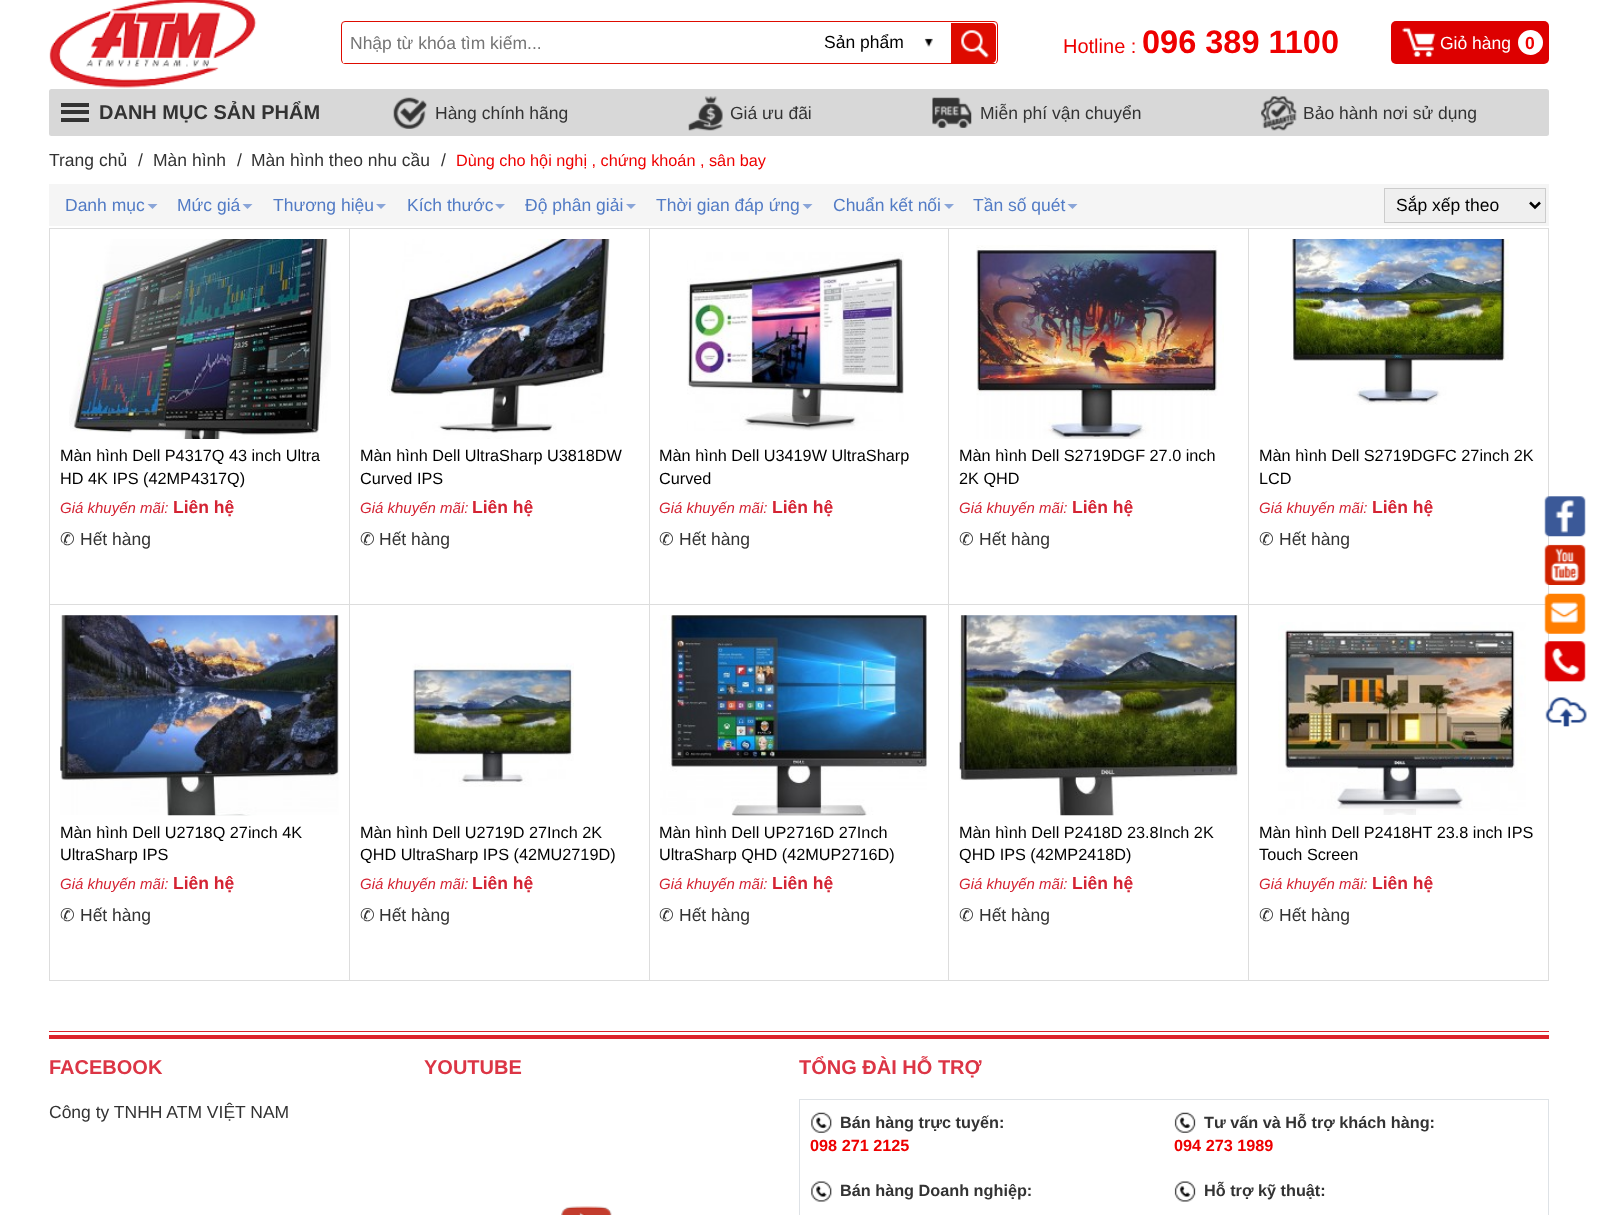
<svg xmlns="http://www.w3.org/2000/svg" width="1597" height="1215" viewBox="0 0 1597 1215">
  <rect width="100%" height="100%" fill="rgb(255,255,255)"/>
  <image x="49" y="0" width="208" height="88" href="pic1.png"/>
  <rect x="341.5" y="21.5" width="656" height="42" rx="3.5" fill="none" stroke="rgb(222,11,0)"/>
  <rect x="343" y="62" width="653" height="1" fill="rgb(255,255,255)"/>
  <text x="350" y="49" font-family="Liberation Sans" font-size="17.5" fill="rgb(117,117,117)">Nhập từ khóa tìm kiếm...</text>
  <image x="924" y="38" width="9" height="9" href="pic2.png"/>
  <text x="824" y="48" font-family="Liberation Sans" font-size="17.5" fill="rgb(0,0,0)">Sản phẩm</text>
  <path d="M951 23H992C994 23 996 25 996 27V59C996 61 994 63 992 63H951Z" fill="rgb(222,11,0)"/>
  <image x="961" y="30" width="28" height="28" href="pic3.png"/>
  <text x="1063" y="53" font-family="Liberation Sans" font-size="20" fill="rgb(238,0,0)">Hotline :</text>
  <text x="1142" y="53" font-family="Liberation Sans" font-size="32.5" font-weight="bold" fill="rgb(238,0,0)">096 389 1100</text>
  <rect x="1391" y="21" width="158" height="43" rx="5" fill="rgb(221,0,0)"/>
  <image x="1402" y="27" width="34" height="30" href="pic4.png"/>
  <text x="1440" y="49" font-family="Liberation Sans" font-size="17.5" fill="rgb(255,255,255)">Giỏ hàng</text>
  <circle cx="1530.5" cy="42.5" r="12.5" fill="rgb(255,255,255)"/>
  <text x="1525" y="49" font-family="Liberation Sans" font-size="17.5" font-weight="bold" fill="rgb(238,0,0)">0</text>
  <rect x="49" y="89" width="1500" height="47" rx="2.5" fill="rgb(216,216,216)"/>
  <rect x="61" y="103" width="28" height="4" fill="rgb(51,51,51)"/>
  <rect x="61" y="110" width="28" height="4" fill="rgb(51,51,51)"/>
  <rect x="61" y="118" width="28" height="4" fill="rgb(51,51,51)"/>
  <text x="99" y="119" font-family="Liberation Sans" font-size="20" font-weight="bold" fill="rgb(51,51,51)">DANH MỤC SẢN PHẨM</text>
  <image x="393" y="97" width="34" height="32" href="pic5.png"/>
  <text x="435" y="119" font-family="Liberation Sans" font-size="17.5" fill="rgb(51,51,51)">Hàng chính hãng</text>
  <image x="688" y="96" width="35" height="35" href="pic6.png"/>
  <text x="730" y="119" font-family="Liberation Sans" font-size="17.5" fill="rgb(51,51,51)">Giá ưu đãi</text>
  <image x="932" y="97" width="40" height="31" href="pic7.png"/>
  <text x="980" y="119" font-family="Liberation Sans" font-size="17.5" fill="rgb(51,51,51)">Miễn phí vận chuyển</text>
  <image x="1261" y="96" width="36" height="35" href="pic8.png"/>
  <g font-family="Liberation Sans" font-size="17.5" fill="rgb(51,51,51)">
    <text x="1303" y="119">Bảo hành nơi sử dụng</text>
    <text x="49" y="166">Trang chủ</text>
    <text x="138" y="166">/</text>
    <text x="153" y="166">Màn hình</text>
    <text x="237" y="166">/</text>
    <text x="251" y="166">Màn hình theo nhu cầu</text>
    <text x="441" y="166">/</text>
  </g>
  <text x="456" y="166" font-family="Liberation Sans" font-size="16.25" fill="rgb(238,0,0)">Dùng cho hội nghị , chứng khoán , sân bay</text>
  <rect x="49" y="184" width="1500" height="42" fill="rgb(245,245,245)"/>
  <text x="65" y="211" font-family="Liberation Sans" font-size="17.5" fill="rgb(82,123,197)">Danh mục</text>
  <path d="M147.5 204H157.5L152.5 209Z" fill="rgb(138,165,216)"/>
  <text x="177" y="211" font-family="Liberation Sans" font-size="17.5" fill="rgb(82,123,197)">Mức giá</text>
  <path d="M242.5 204H252.5L247.5 209Z" fill="rgb(138,165,216)"/>
  <text x="273" y="211" font-family="Liberation Sans" font-size="17.5" fill="rgb(82,123,197)">Thương hiệu</text>
  <path d="M376 204H386L381 209Z" fill="rgb(138,165,216)"/>
  <text x="407" y="211" font-family="Liberation Sans" font-size="17.5" fill="rgb(82,123,197)">Kích thước</text>
  <path d="M495 204H505L500 209Z" fill="rgb(138,165,216)"/>
  <text x="525" y="211" font-family="Liberation Sans" font-size="17.5" fill="rgb(82,123,197)">Độ phân giải</text>
  <path d="M626 204H636L631 209Z" fill="rgb(138,165,216)"/>
  <text x="656" y="211" font-family="Liberation Sans" font-size="17.5" fill="rgb(82,123,197)">Thời gian đáp ứng</text>
  <path d="M802.5 204H812.5L807.5 209Z" fill="rgb(138,165,216)"/>
  <text x="833" y="211" font-family="Liberation Sans" font-size="17.5" fill="rgb(82,123,197)">Chuẩn kết nối</text>
  <path d="M944 204H954L949 209Z" fill="rgb(138,165,216)"/>
  <text x="973" y="211" font-family="Liberation Sans" font-size="17.5" fill="rgb(82,123,197)">Tần số quét</text>
  <path d="M1067.5 204H1077.5L1072.5 209Z" fill="rgb(138,165,216)"/>
  <rect x="1384.5" y="188.5" width="161" height="34" fill="rgb(239,239,239)" stroke="rgb(204,204,204)"/>
  <path d="M1530 202.5L1535 207.5L1540 202.5" fill="none" stroke="rgb(0,0,0)" stroke-width="2.5"/>
  <text x="1396" y="211" font-family="Liberation Sans" font-size="17.5" fill="rgb(0,0,0)">Sắp xếp theo</text>
  <rect x="49" y="228" width="1500" height="1" fill="rgb(221,221,221)"/>
  <rect x="49" y="228" width="1" height="753" fill="rgb(221,221,221)"/>
  <rect x="349" y="229" width="1" height="752" fill="rgb(221,221,221)"/>
  <rect x="50" y="604" width="300" height="1" fill="rgb(221,221,221)"/>
  <image x="69" y="239" width="262" height="200" href="pic9.png"/>
  <g font-family="Liberation Sans" font-size="16.25" fill="rgb(0,0,0)">
    <text>
      <tspan x="60" y="461">Màn hình Dell P4317Q 43 inch Ultra</tspan>
      <tspan x="60" y="484">HD 4K IPS (42MP4317Q)</tspan>
    </text>
  </g>
  <text x="60" y="513" font-family="Liberation Sans" font-size="15" font-style="italic" fill="rgb(212,35,51)">Giá khuyến mãi:</text>
  <text x="173" y="513" font-family="Liberation Sans" font-size="17.5" font-weight="bold" fill="rgb(212,35,51)">Liên hệ</text>
  <text x="60" y="545" font-family="DejaVu Sans" font-size="17.5" fill="rgb(51,51,51)">✆</text>
  <text x="80" y="545" font-family="Liberation Sans" font-size="17.5" fill="rgb(51,51,51)">Hết hàng</text>
  <rect x="649" y="229" width="1" height="752" fill="rgb(221,221,221)"/>
  <rect x="350" y="604" width="300" height="1" fill="rgb(221,221,221)"/>
  <image x="387" y="239" width="223" height="200" href="pic10.png"/>
  <g font-family="Liberation Sans" font-size="16.25" fill="rgb(0,0,0)">
    <text>
      <tspan x="360" y="461">Màn hình Dell UltraSharp U3818DW</tspan>
      <tspan x="360" y="484">Curved IPS</tspan>
    </text>
  </g>
  <text x="360" y="513" font-family="Liberation Sans" font-size="15" font-style="italic" fill="rgb(212,35,51)">Giá khuyến mãi:</text>
  <text x="472" y="513" font-family="Liberation Sans" font-size="17.5" font-weight="bold" fill="rgb(212,35,51)">Liên hệ</text>
  <text x="360" y="545" font-family="DejaVu Sans" font-size="17.5" fill="rgb(51,51,51)">✆</text>
  <text x="379" y="545" font-family="Liberation Sans" font-size="17.5" fill="rgb(51,51,51)">Hết hàng</text>
  <rect x="948" y="229" width="1" height="752" fill="rgb(221,221,221)"/>
  <rect x="650" y="604" width="299" height="1" fill="rgb(221,221,221)"/>
  <image x="687" y="252" width="217" height="179" href="pic11.png"/>
  <g font-family="Liberation Sans" font-size="16.25" fill="rgb(0,0,0)">
    <text>
      <tspan x="659" y="461">Màn hình Dell U3419W UltraSharp</tspan>
      <tspan x="659" y="484">Curved</tspan>
    </text>
  </g>
  <text x="659" y="513" font-family="Liberation Sans" font-size="15" font-style="italic" fill="rgb(212,35,51)">Giá khuyến mãi:</text>
  <text x="772" y="513" font-family="Liberation Sans" font-size="17.5" font-weight="bold" fill="rgb(212,35,51)">Liên hệ</text>
  <text x="659" y="545" font-family="DejaVu Sans" font-size="17.5" fill="rgb(51,51,51)">✆</text>
  <text x="679" y="545" font-family="Liberation Sans" font-size="17.5" fill="rgb(51,51,51)">Hết hàng</text>
  <rect x="1248" y="229" width="1" height="752" fill="rgb(221,221,221)"/>
  <rect x="949" y="604" width="600" height="1" fill="rgb(221,221,221)"/>
  <image x="976" y="245" width="248" height="194" href="pic12.png"/>
  <g font-family="Liberation Sans" font-size="16.25" fill="rgb(0,0,0)">
    <text>
      <tspan x="959" y="461">Màn hình Dell S2719DGF 27.0 inch</tspan>
      <tspan x="959" y="484">2K QHD</tspan>
    </text>
  </g>
  <text x="959" y="513" font-family="Liberation Sans" font-size="15" font-style="italic" fill="rgb(212,35,51)">Giá khuyến mãi:</text>
  <text x="1072" y="513" font-family="Liberation Sans" font-size="17.5" font-weight="bold" fill="rgb(212,35,51)">Liên hệ</text>
  <text x="959" y="545" font-family="DejaVu Sans" font-size="17.5" fill="rgb(51,51,51)">✆</text>
  <text x="979" y="545" font-family="Liberation Sans" font-size="17.5" fill="rgb(51,51,51)">Hết hàng</text>
  <rect x="1548" y="229" width="1" height="367" fill="rgb(221,221,221)"/>
  <image x="1290" y="239" width="219" height="166" href="pic13.png"/>
  <g font-family="Liberation Sans" font-size="16.25" fill="rgb(0,0,0)">
    <text>
      <tspan x="1259" y="461">Màn hình Dell S2719DGFC 27inch 2K</tspan>
      <tspan x="1259" y="484">LCD</tspan>
    </text>
  </g>
  <text x="1259" y="513" font-family="Liberation Sans" font-size="15" font-style="italic" fill="rgb(212,35,51)">Giá khuyến mãi:</text>
  <text x="1372" y="513" font-family="Liberation Sans" font-size="17.5" font-weight="bold" fill="rgb(212,35,51)">Liên hệ</text>
  <text x="1259" y="545" font-family="DejaVu Sans" font-size="17.5" fill="rgb(51,51,51)">✆</text>
  <text x="1279" y="545" font-family="Liberation Sans" font-size="17.5" fill="rgb(51,51,51)">Hết hàng</text>
  <rect x="50" y="980" width="1199" height="1" fill="rgb(221,221,221)"/>
  <image x="60" y="615" width="279" height="201" href="pic14.png"/>
  <g font-family="Liberation Sans" font-size="16.25" fill="rgb(0,0,0)">
    <text>
      <tspan x="60" y="838">Màn hình Dell U2718Q 27inch 4K</tspan>
      <tspan x="60" y="860">UltraSharp IPS</tspan>
    </text>
  </g>
  <text x="60" y="889" font-family="Liberation Sans" font-size="15" font-style="italic" fill="rgb(212,35,51)">Giá khuyến mãi:</text>
  <text x="173" y="889" font-family="Liberation Sans" font-size="17.5" font-weight="bold" fill="rgb(212,35,51)">Liên hệ</text>
  <text x="60" y="921" font-family="DejaVu Sans" font-size="17.5" fill="rgb(51,51,51)">✆</text>
  <text x="80" y="921" font-family="Liberation Sans" font-size="17.5" fill="rgb(51,51,51)">Hết hàng</text>
  <image x="412" y="663" width="162" height="124" href="pic15.png"/>
  <g font-family="Liberation Sans" font-size="16.25" fill="rgb(0,0,0)">
    <text>
      <tspan x="360" y="838">Màn hình Dell U2719D 27Inch 2K</tspan>
      <tspan x="360" y="860">QHD UltraSharp IPS (42MU2719D)</tspan>
    </text>
  </g>
  <text x="360" y="889" font-family="Liberation Sans" font-size="15" font-style="italic" fill="rgb(212,35,51)">Giá khuyến mãi:</text>
  <text x="472" y="889" font-family="Liberation Sans" font-size="17.5" font-weight="bold" fill="rgb(212,35,51)">Liên hệ</text>
  <text x="360" y="921" font-family="DejaVu Sans" font-size="17.5" fill="rgb(51,51,51)">✆</text>
  <text x="379" y="921" font-family="Liberation Sans" font-size="17.5" fill="rgb(51,51,51)">Hết hàng</text>
  <image x="660" y="615" width="267" height="201" href="pic16.png"/>
  <g font-family="Liberation Sans" font-size="16.25" fill="rgb(0,0,0)">
    <text>
      <tspan x="659" y="838">Màn hình Dell UP2716D 27Inch</tspan>
      <tspan x="659" y="860">UltraSharp QHD (42MUP2716D)</tspan>
    </text>
  </g>
  <text x="659" y="889" font-family="Liberation Sans" font-size="15" font-style="italic" fill="rgb(212,35,51)">Giá khuyến mãi:</text>
  <text x="772" y="889" font-family="Liberation Sans" font-size="17.5" font-weight="bold" fill="rgb(212,35,51)">Liên hệ</text>
  <text x="659" y="921" font-family="DejaVu Sans" font-size="17.5" fill="rgb(51,51,51)">✆</text>
  <text x="679" y="921" font-family="Liberation Sans" font-size="17.5" fill="rgb(51,51,51)">Hết hàng</text>
  <image x="959" y="615" width="279" height="201" href="pic17.png"/>
  <g font-family="Liberation Sans" font-size="16.25" fill="rgb(0,0,0)">
    <text>
      <tspan x="959" y="838">Màn hình Dell P2418D 23.8Inch 2K</tspan>
      <tspan x="959" y="860">QHD IPS (42MP2418D)</tspan>
    </text>
  </g>
  <text x="959" y="889" font-family="Liberation Sans" font-size="15" font-style="italic" fill="rgb(212,35,51)">Giá khuyến mãi:</text>
  <text x="1072" y="889" font-family="Liberation Sans" font-size="17.5" font-weight="bold" fill="rgb(212,35,51)">Liên hệ</text>
  <text x="959" y="921" font-family="DejaVu Sans" font-size="17.5" fill="rgb(51,51,51)">✆</text>
  <text x="979" y="921" font-family="Liberation Sans" font-size="17.5" fill="rgb(51,51,51)">Hết hàng</text>
  <rect x="1548" y="632" width="1" height="349" fill="rgb(221,221,221)"/>
  <rect x="1249" y="980" width="300" height="1" fill="rgb(221,221,221)"/>
  <image x="1278" y="622" width="248" height="193" href="pic18.png"/>
  <g font-family="Liberation Sans" font-size="16.25" fill="rgb(0,0,0)">
    <text>
      <tspan x="1259" y="838">Màn hình Dell P2418HT 23.8 inch IPS</tspan>
      <tspan x="1259" y="860">Touch Screen</tspan>
    </text>
  </g>
  <text x="1259" y="889" font-family="Liberation Sans" font-size="15" font-style="italic" fill="rgb(212,35,51)">Giá khuyến mãi:</text>
  <text x="1372" y="889" font-family="Liberation Sans" font-size="17.5" font-weight="bold" fill="rgb(212,35,51)">Liên hệ</text>
  <text x="1259" y="921" font-family="DejaVu Sans" font-size="17.5" fill="rgb(51,51,51)">✆</text>
  <text x="1279" y="921" font-family="Liberation Sans" font-size="17.5" fill="rgb(51,51,51)">Hết hàng</text>
  <rect x="49" y="1031" width="1500" height="1" fill="rgb(220,35,43)"/>
  <rect x="49" y="1035" width="1500" height="4" fill="rgb(220,35,43)"/>
  <text x="49" y="1074" font-family="Liberation Sans" font-size="20" font-weight="bold" fill="rgb(220,53,69)">FACEBOOK</text>
  <text x="49" y="1118" font-family="Liberation Sans" font-size="17.5" fill="rgb(51,51,51)">Công ty TNHH ATM VIỆT NAM</text>
  <text x="424" y="1074" font-family="Liberation Sans" font-size="20" font-weight="bold" fill="rgb(220,53,69)">YOUTUBE</text>
  <image x="561" y="1206" width="51" height="9" href="pic19.png"/>
  <text x="799" y="1074" font-family="Liberation Sans" font-size="20" font-weight="bold" fill="rgb(220,53,69)">TỔNG ĐÀI HỖ TRỢ</text>
  <rect x="799.5" y="1099.5" width="749" height="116" fill="none" stroke="rgb(222,226,230)"/>
  <image x="811" y="1112" width="21" height="21" href="pic20.png"/>
  <text x="840" y="1128" font-family="Liberation Sans" font-size="16.25" font-weight="bold" fill="rgb(51,51,51)">Bán hàng trực tuyến:</text>
  <text x="810" y="1151" font-family="Liberation Sans" font-size="16.25" font-weight="bold" fill="rgb(238,0,0)">098 271 2125</text>
  <image x="811" y="1181" width="21" height="21" href="pic21.png"/>
  <text x="840" y="1196" font-family="Liberation Sans" font-size="16.25" font-weight="bold" fill="rgb(51,51,51)">Bán hàng Doanh nghiệp:</text>
  <image x="1174" y="1112" width="22" height="21" href="pic22.png"/>
  <text x="1204" y="1128" font-family="Liberation Sans" font-size="16.25" font-weight="bold" fill="rgb(51,51,51)">Tư vấn và Hỗ trợ khách hàng:</text>
  <text x="1174" y="1151" font-family="Liberation Sans" font-size="16.25" font-weight="bold" fill="rgb(238,0,0)">094 273 1989</text>
  <image x="1174" y="1181" width="22" height="21" href="pic23.png"/>
  <text x="1204" y="1196" font-family="Liberation Sans" font-size="16.25" font-weight="bold" fill="rgb(51,51,51)">Hỗ trợ kỹ thuật:</text>
  <image x="1544" y="496" width="42" height="41" href="pic24.png"/>
  <image x="1544" y="544" width="42" height="41" href="pic25.png"/>
  <image x="1544" y="593" width="42" height="41" href="pic26.png"/>
  <image x="1544" y="641" width="42" height="41" href="pic27.png"/>
  <image x="1545" y="697" width="42" height="30" href="pic28.png"/>
</svg>
